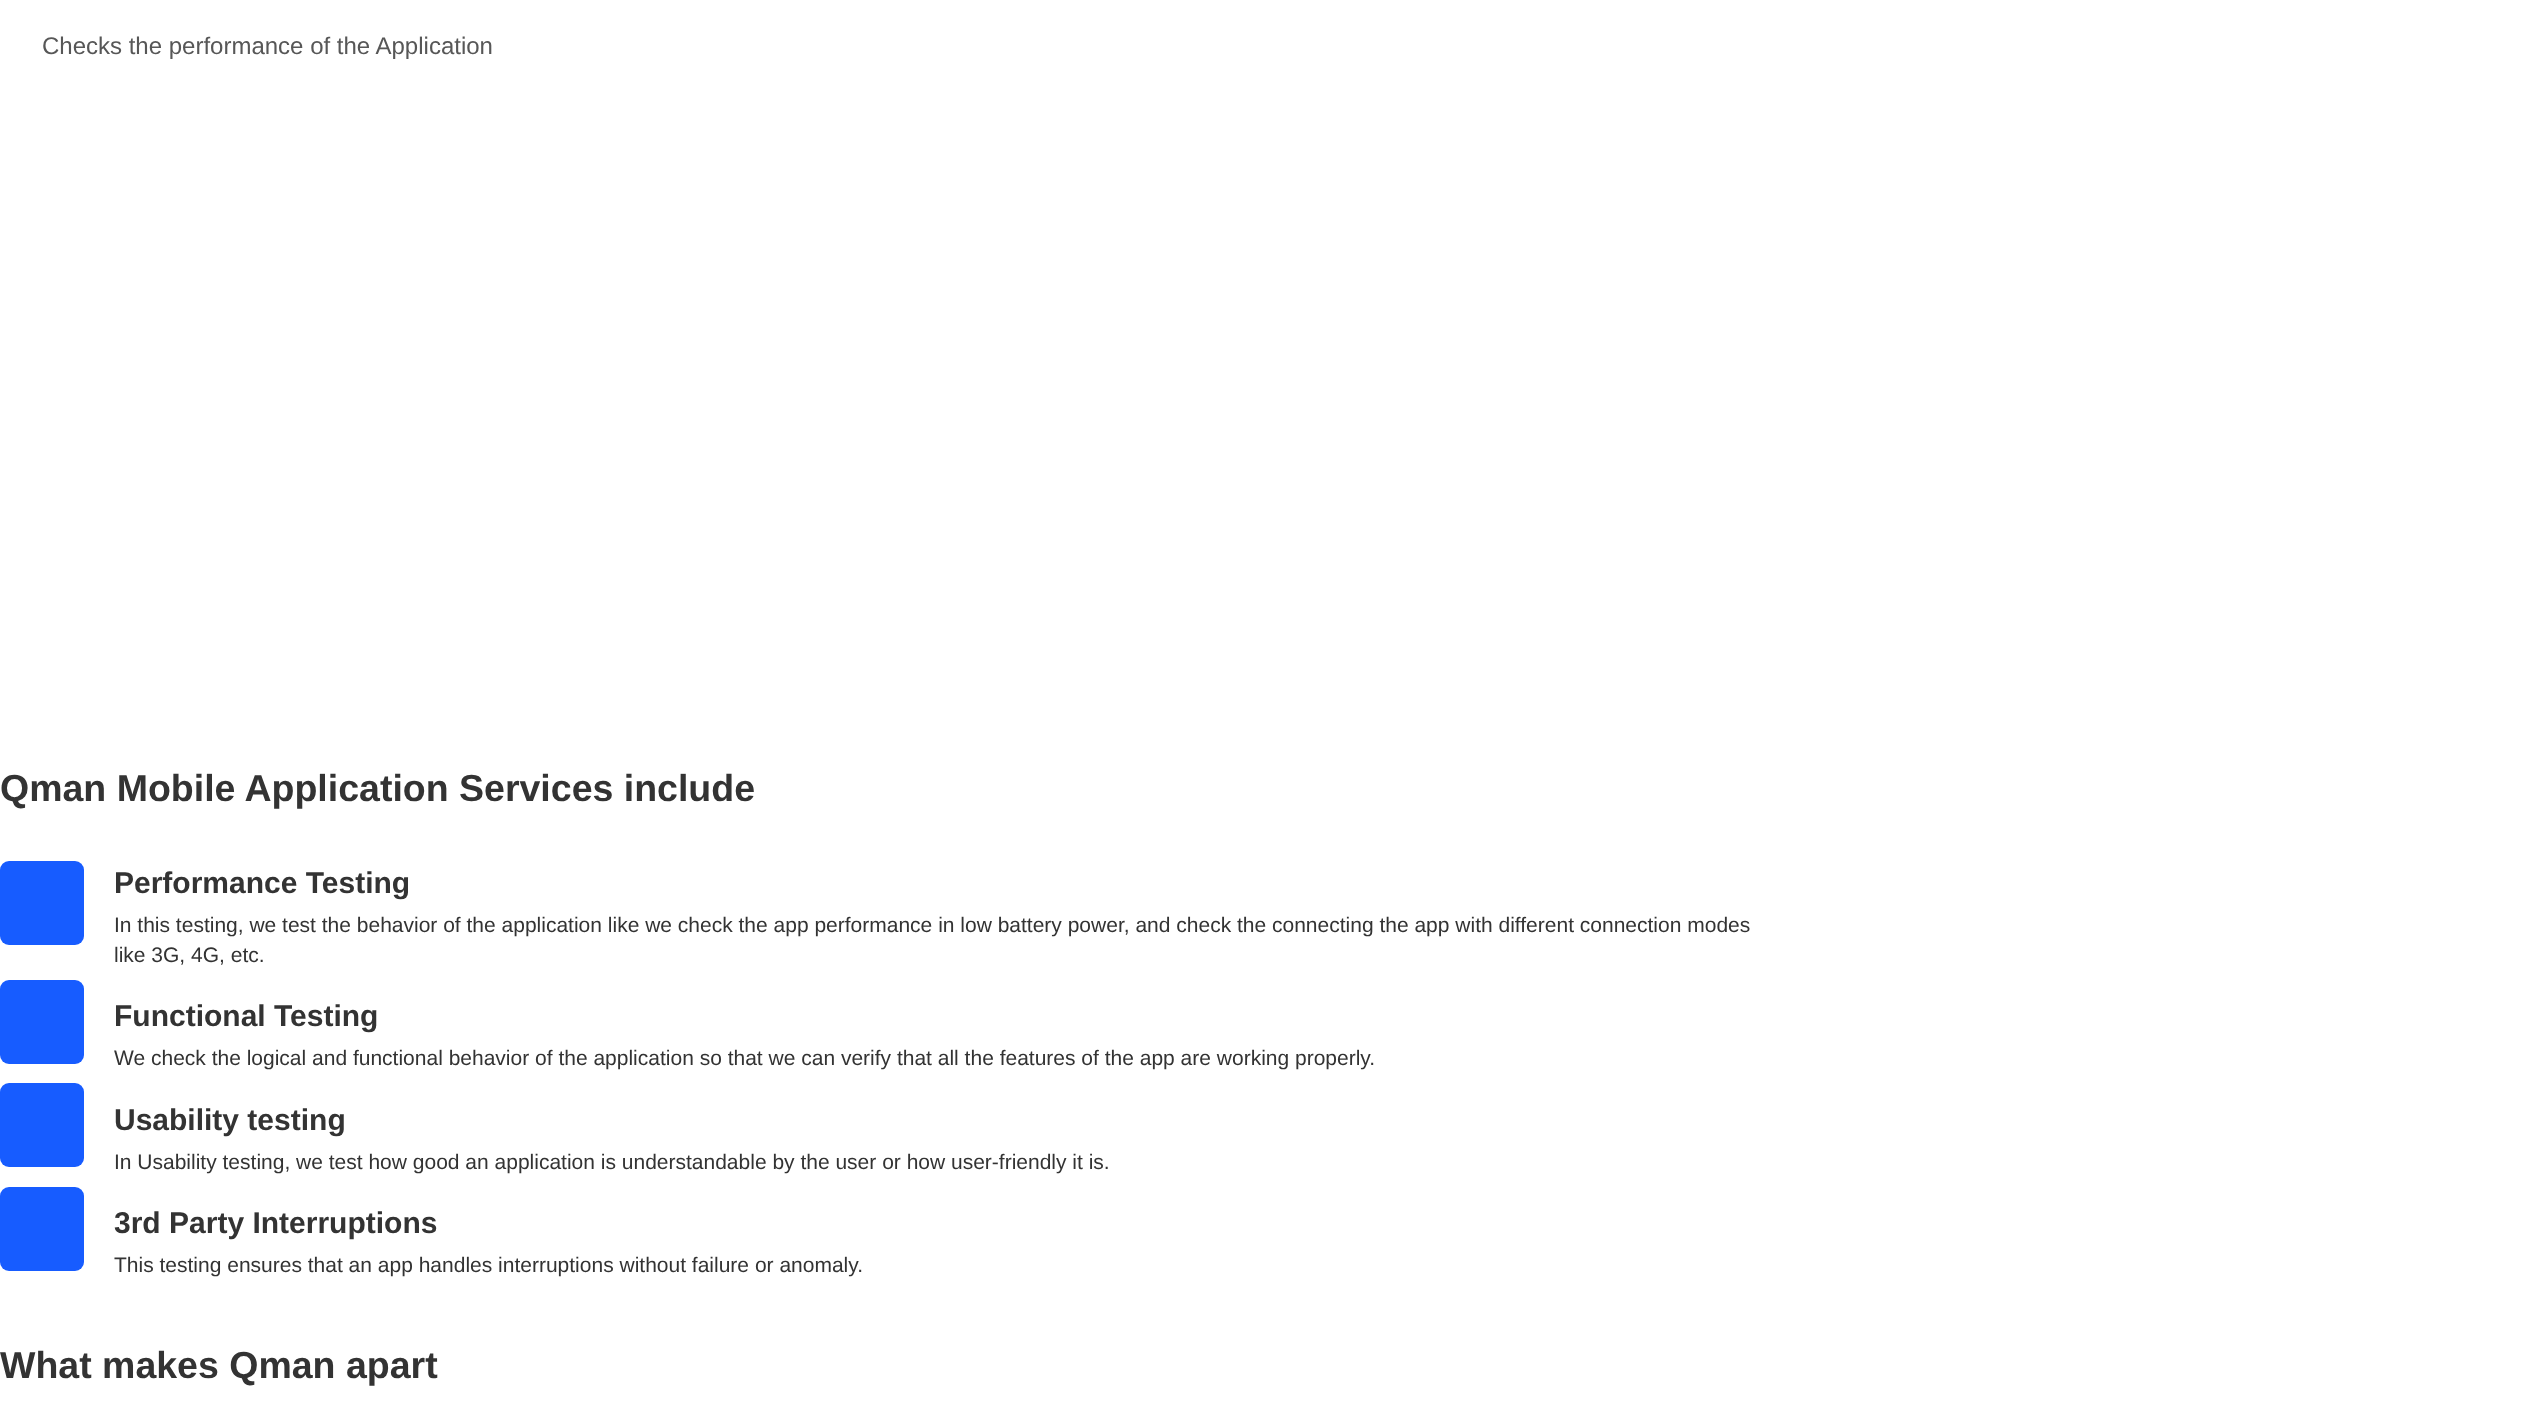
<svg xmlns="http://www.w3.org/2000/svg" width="2545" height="1412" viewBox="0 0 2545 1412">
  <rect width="100%" height="100%" fill="rgb(255,255,255)"/>
  <text x="42" y="54" font-family="Liberation Sans" font-size="24" fill="rgb(87,87,87)">Checks the performance of the Application</text>
  <text x="0" y="801" font-family="Liberation Sans" font-size="37.5" font-weight="bold" fill="rgb(51,51,51)">Qman Mobile Application Services include</text>
  <rect x="0" y="861" width="84" height="84" rx="9" fill="rgb(23,92,255)"/>
  <text x="114" y="893" font-family="Liberation Sans" font-size="30" font-weight="bold" fill="rgb(51,51,51)">Performance Testing</text>
  <g font-family="Liberation Sans" font-size="21" fill="rgb(51,51,51)">
    <text>
      <tspan x="114" y="932">In this testing, we test the behavior of the application like we check the app performance in low battery power, and check the connecting the app with different connection modes</tspan>
      <tspan x="114" y="962">like 3G, 4G, etc.</tspan>
    </text>
  </g>
  <rect x="0" y="980" width="84" height="84" rx="9" fill="rgb(23,92,255)"/>
  <text x="114" y="1026" font-family="Liberation Sans" font-size="30" font-weight="bold" fill="rgb(51,51,51)">Functional Testing</text>
  <text x="114" y="1065" font-family="Liberation Sans" font-size="21" fill="rgb(51,51,51)">We check the logical and functional behavior of the application so that we can verify that all the features of the app are working properly.</text>
  <rect x="0" y="1083" width="84" height="84" rx="9" fill="rgb(23,92,255)"/>
  <text x="114" y="1130" font-family="Liberation Sans" font-size="30" font-weight="bold" fill="rgb(51,51,51)">Usability testing</text>
  <text x="114" y="1169" font-family="Liberation Sans" font-size="21" fill="rgb(51,51,51)">In Usability testing, we test how good an application is understandable by the user or how user-friendly it is.</text>
  <rect x="0" y="1187" width="84" height="84" rx="9" fill="rgb(23,92,255)"/>
  <text x="114" y="1233" font-family="Liberation Sans" font-size="30" font-weight="bold" fill="rgb(51,51,51)">3rd Party Interruptions</text>
  <text x="114" y="1272" font-family="Liberation Sans" font-size="21" fill="rgb(51,51,51)">This testing ensures that an app handles interruptions without failure or anomaly.</text>
  <text x="0" y="1378" font-family="Liberation Sans" font-size="37.5" font-weight="bold" fill="rgb(51,51,51)">What makes Qman apart</text>
</svg>
